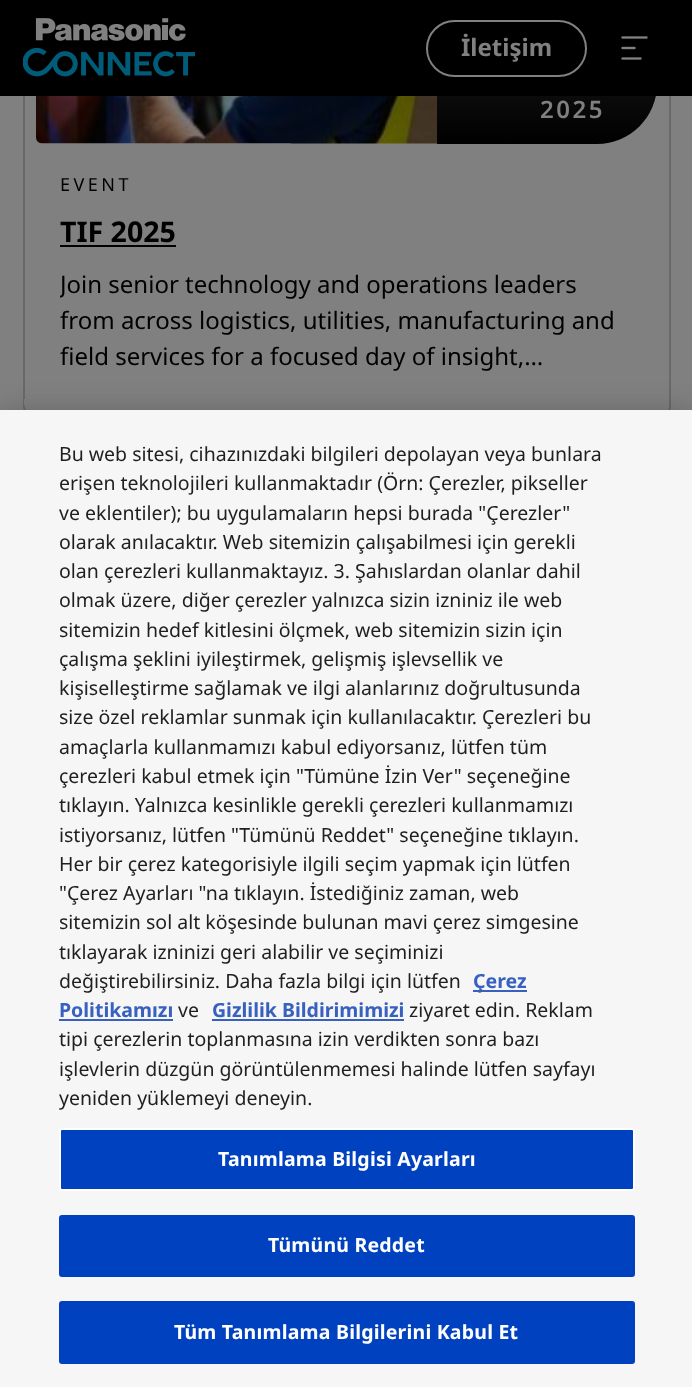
<svg xmlns="http://www.w3.org/2000/svg" width="692" height="1387" viewBox="0 0 692 1387">
  <defs>
    <linearGradient id="g1" gradientUnits="userSpaceOnUse" x1="547" y1="48" x2="547" y2="144"><stop offset="0" stop-color="rgb(22,22,22)"/><stop offset="1" stop-color="rgb(0,0,0)"/></linearGradient>
    <clipPath id="clip1"><rect x="60" y="267" width="573" height="108"/></clipPath>
    <clipPath id="clip2"><rect x="59" y="440" width="544" height="673"/></clipPath>
  </defs>
  <rect width="100%" height="100%" fill="rgb(128,128,128)"/>
  <rect x="24" y="-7" width="646" height="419" rx="5" fill="none" stroke="rgb(105,105,105)" stroke-width="2"/>
  <image x="36" y="96" width="620" height="48" href="pic3.png"/>
  <path d="M443 48H645C651.5 48 657 53.5 657 60V84C657 117 630 144 597 144H437V54C437 50.5 439.5 48 443 48Z" fill="url(#g1)"/>
  <rect x="0" y="0" width="692" height="96" fill="rgb(0,0,0)"/>
  <image x="23" y="18" width="172" height="59" href="pic1.png"/>
  <rect x="427" y="21" width="159" height="55" rx="27.5" fill="none" stroke="rgb(128,128,128)" stroke-width="2"/>
  <text x="461" y="56" font-family="Noto Sans" font-size="24" font-weight="bold" fill="rgb(128,128,128)">İletişim</text>
  <image x="621" y="36" width="27" height="24" href="pic2.png"/>
  <text x="540" y="118" font-family="Noto Sans" font-size="24" font-weight="600" letter-spacing="2.5" fill="rgb(128,128,128)">2025</text>
  <text x="60" y="191" font-family="Noto Sans" font-size="18" letter-spacing="3.5" fill="rgb(0,0,0)">EVENT</text>
  <text x="60" y="242" font-family="Noto Sans" font-size="28.5" font-weight="bold" fill="rgb(0,0,0)">TIF 2025</text>
  <rect x="60" y="245" width="116" height="2" fill="rgb(0,0,0)"/>
  <g clip-path="url(#clip1)">
    <text x="60" y="293" font-family="Noto Sans" font-size="24" fill="rgb(0,0,0)">Join senior technology and operations leaders</text>
  </g>
  <g font-family="Noto Sans" font-size="24" fill="rgb(0,0,0)">
    <text>
      <tspan x="60" y="329">from across logistics, utilities, manufacturing and</tspan>
      <tspan x="60" y="365">field services for a focused day of insight,…</tspan>
    </text>
  </g>
  <path d="M24 399H669V403C669 407.5 665.5 411 661 411H32C27.5 411 24 407.5 24 403Z" fill="rgb(128,128,128)"/>
  <rect x="0" y="410" width="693" height="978" fill="rgba(0,0,0,0.2)" filter="blur(13.5px)"/>
  <rect x="0" y="410" width="692" height="977" fill="rgb(246,246,246)"/>
  <g font-family="Noto Sans" font-size="19.5" fill="rgb(31,31,31)">
    <text>
      <tspan x="59" y="461">Bu web sitesi, cihazınızdaki bilgileri depolayan veya bunlara</tspan>
      <tspan x="59" y="490">erişen teknolojileri kullanmaktadır (Örn: Çerezler, pikseller</tspan>
      <tspan x="59" y="520">ve eklentiler); bu uygulamaların hepsi burada "Çerezler"</tspan>
      <tspan x="59" y="549">olarak anılacaktır. Web sitemizin çalışabilmesi için gerekli</tspan>
      <tspan x="59" y="578">olan çerezleri kullanmaktayız. 3. Şahıslardan olanlar dahil</tspan>
      <tspan x="59" y="607">olmak üzere, diğer çerezler yalnızca sizin izniniz ile web</tspan>
      <tspan x="59" y="637">sitemizin hedef kitlesini ölçmek, web sitemizin sizin için</tspan>
      <tspan x="59" y="666">çalışma şeklini iyileştirmek, gelişmiş işlevsellik ve</tspan>
      <tspan x="59" y="695">kişiselleştirme sağlamak ve ilgi alanlarınız doğrultusunda</tspan>
      <tspan x="59" y="724">size özel reklamlar sunmak için kullanılacaktır. Çerezleri bu</tspan>
      <tspan x="59" y="754">amaçlarla kullanmamızı kabul ediyorsanız, lütfen tüm</tspan>
      <tspan x="59" y="783">çerezleri kabul etmek için "Tümüne İzin Ver" seçeneğine</tspan>
      <tspan x="59" y="812">tıklayın. Yalnızca kesinlikle gerekli çerezleri kullanmamızı</tspan>
      <tspan x="59" y="842">istiyorsanız, lütfen "Tümünü Reddet" seçeneğine tıklayın.</tspan>
      <tspan x="59" y="871">Her bir çerez kategorisiyle ilgili seçim yapmak için lütfen</tspan>
      <tspan x="59" y="900">"Çerez Ayarları "na tıklayın. İstediğiniz zaman, web</tspan>
      <tspan x="59" y="929">sitemizin sol alt köşesinde bulunan mavi çerez simgesine</tspan>
      <tspan x="59" y="959">tıklayarak izninizi geri alabilir ve seçiminizi</tspan>
      <tspan x="59" y="988">değiştirebilirsiniz. Daha fazla bilgi için lütfen</tspan>
    </text>
  </g>
  <rect x="473" y="990" width="54" height="2" fill="rgb(56,96,190)"/>
  <g font-family="Noto Sans" font-size="19.5" font-weight="bold" fill="rgb(56,96,190)">
    <text x="473" y="988">Çerez</text>
    <text x="59" y="1017">Politikamızı</text>
  </g>
  <rect x="59" y="1019" width="114" height="2" fill="rgb(56,96,190)"/>
  <text x="178" y="1017" font-family="Noto Sans" font-size="19.5" fill="rgb(31,31,31)">ve</text>
  <text x="212" y="1017" font-family="Noto Sans" font-size="19.5" font-weight="bold" fill="rgb(56,96,190)">Gizlilik Bildirimimizi</text>
  <rect x="212" y="1019" width="192" height="2" fill="rgb(56,96,190)"/>
  <g font-family="Noto Sans" font-size="19.5" fill="rgb(31,31,31)">
    <text x="409" y="1017">ziyaret edin. Reklam</text>
    <text>
      <tspan x="59" y="1046">tipi çerezlerin toplanmasına izin verdikten sonra bazı</tspan>
      <tspan x="59" y="1076">işlevlerin düzgün görüntülenmemesi halinde lütfen sayfayı</tspan>
    </text>
  </g>
  <g clip-path="url(#clip2)">
    <text x="59" y="1105" font-family="Noto Sans" font-size="19.5" fill="rgb(31,31,31)">yeniden yüklemeyi deneyin.</text>
  </g>
  <rect x="60" y="1129" width="574" height="61" rx="2" fill="rgb(0,65,192)" stroke="rgb(255,255,255)" stroke-width="2"/>
  <text x="218" y="1166" font-family="Noto Sans" font-size="19.5" font-weight="bold" letter-spacing="0.2" fill="rgb(255,255,255)">Tanımlama Bilgisi Ayarları</text>
  <rect x="60" y="1216" width="574" height="60" rx="2" fill="rgb(0,65,192)" stroke="rgb(0,65,192)" stroke-width="2"/>
  <text x="268" y="1252" font-family="Noto Sans" font-size="19.5" font-weight="bold" letter-spacing="0.2" fill="rgb(255,255,255)">Tümünü Reddet</text>
  <rect x="60" y="1302" width="574" height="61" rx="2" fill="rgb(0,65,192)" stroke="rgb(0,65,192)" stroke-width="2"/>
  <text x="174" y="1339" font-family="Noto Sans" font-size="19.5" font-weight="bold" letter-spacing="0.2" fill="rgb(255,255,255)">Tüm Tanımlama Bilgilerini Kabul Et</text>
</svg>
